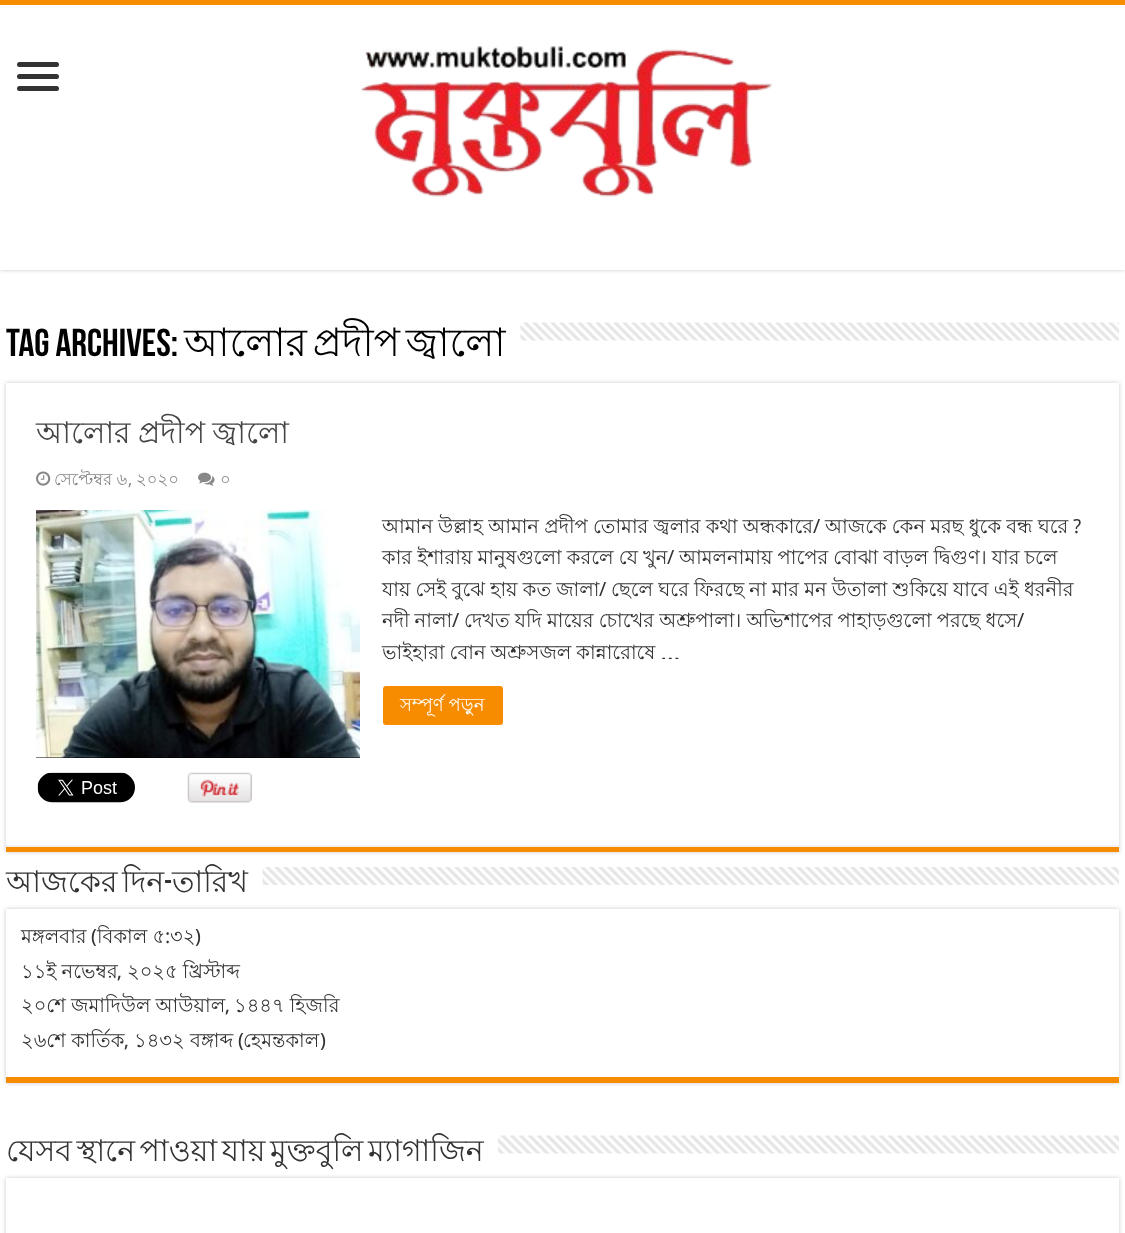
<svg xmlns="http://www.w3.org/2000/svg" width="1125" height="1233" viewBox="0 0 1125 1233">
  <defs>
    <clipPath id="clip1"><rect x="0" y="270" width="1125" height="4"/></clipPath>
    <clipPath id="clip2"><rect x="6" y="308" width="1113" height="75"/></clipPath>
    <clipPath id="clip3"><path d="M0 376H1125V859H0ZM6 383H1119V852H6Z" clip-rule="evenodd"/></clipPath>
    <clipPath id="clip4"><path d="M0 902H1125V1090H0ZM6 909H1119V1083H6Z" clip-rule="evenodd"/></clipPath>
    <clipPath id="clip5"><path d="M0 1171H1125V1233H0ZM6 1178H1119V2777H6Z" clip-rule="evenodd"/></clipPath>
  </defs>
  <rect width="100%" height="100%" fill="rgb(255,255,255)"/>
  <g clip-path="url(#clip1)">
    <rect x="0" y="0" width="1125" height="270" fill="rgb(202,202,202)" filter="blur(2px)"/>
  </g>
  <rect x="0" y="0" width="1125" height="5" fill="rgb(248,140,0)"/>
  <rect x="17" y="62" width="42" height="5" rx="2.5" fill="rgb(51,51,51)"/>
  <rect x="17" y="74" width="42" height="5" rx="2.5" fill="rgb(51,51,51)"/>
  <rect x="17" y="86" width="42" height="5" rx="2.5" fill="rgb(51,51,51)"/>
  <image x="361" y="46" width="412" height="151" href="pic1.png"/>
  <g clip-path="url(#clip2)">
    <text x="6" y="356" font-family="Bebas Neue" font-size="39" font-weight="bold" fill="rgb(0,0,0)">Tag Archives:</text>
  </g>
  <text x="184" y="356" word-spacing="-5" font-family="Lohit Bengali" font-size="39" fill="rgb(0,0,0)">আলোর প্রদীপ জ্বালো</text>
  <image x="520" y="322" width="599" height="19" href="pic2.png"/>
  <g clip-path="url(#clip3)">
    <rect x="6" y="383" width="1113" height="469" fill="rgb(202,202,202)" filter="blur(2px)"/>
  </g>
  <rect x="6" y="847" width="1113" height="5" fill="rgb(248,140,0)"/>
  <rect x="6" y="845" width="1113" height="2" fill="rgb(242,242,242)"/>
  <text x="36" y="443" word-spacing="-1" font-family="Lohit Bengali" font-size="30" fill="rgb(68,68,68)">আলোর প্রদীপ জ্বালো</text>
  <image x="36" y="471" width="15" height="15" href="pic3.png"/>
  <text x="54" y="485" word-spacing="-0.25" font-family="Lohit Bengali" font-size="16.5" fill="rgb(136,136,136)">সেপ্টেম্বর ৬</text>
  <text x="128" y="485" font-family="Droid Sans" font-size="16.5" fill="rgb(136,136,136)">,</text>
  <text x="136" y="485" font-family="Lohit Bengali" font-size="16.5" fill="rgb(136,136,136)">২০২০</text>
  <image x="198" y="472" width="17" height="14" href="pic4.png"/>
  <text x="220" y="485" font-family="Lohit Bengali" font-size="16.5" fill="rgb(136,136,136)">০</text>
  <rect x="36" y="757" width="324" height="1" fill="rgb(0,0,0)"/>
  <image x="36" y="510" width="324" height="248" href="pic5.png"/>
  <text x="382" y="533" word-spacing="-0.25" font-family="Lohit Bengali" font-size="19.5" fill="rgb(51,51,51)">আমান উল্লাহ আমান প্রদীপ তোমার জ্বলার কথা অন্ধকারে</text>
  <text x="813" y="533" font-family="Droid Sans" font-size="19.5" fill="rgb(51,51,51)">/</text>
  <text x="825" y="533" word-spacing="-0.25" font-family="Lohit Bengali" font-size="19.5" fill="rgb(51,51,51)">আজকে কেন মরছ ধুকে বন্ধ ঘরে</text>
  <text x="1073" y="533" font-family="Droid Sans" font-size="19.5" fill="rgb(51,51,51)">?</text>
  <text x="382" y="564" word-spacing="-0.25" font-family="Lohit Bengali" font-size="19.5" fill="rgb(51,51,51)">কার ইশারায় মানুষগুলো করলে যে খুন</text>
  <text x="667" y="564" font-family="Droid Sans" font-size="19.5" fill="rgb(51,51,51)">/</text>
  <g font-family="Lohit Bengali" font-size="19.5" fill="rgb(51,51,51)">
    <text x="679" y="564" word-spacing="-0.25">আমলনামায় পাপের বোঝা বাড়ল দ্বিগুণ। যার চলে</text>
    <text x="382" y="596" word-spacing="-0.25">যায় সেই বুঝে হায় কত জালা</text>
  </g>
  <text x="599" y="596" font-family="Droid Sans" font-size="19.5" fill="rgb(51,51,51)">/</text>
  <g font-family="Lohit Bengali" font-size="19.5" fill="rgb(51,51,51)">
    <text x="611" y="596" word-spacing="-0.25">ছেলে ঘরে ফিরছে না মার মন উতালা শুকিয়ে যাবে এই ধরনীর</text>
    <text x="382" y="627" word-spacing="-0.25">নদী নালা</text>
  </g>
  <text x="452" y="627" font-family="Droid Sans" font-size="19.5" fill="rgb(51,51,51)">/</text>
  <text x="464" y="627" word-spacing="-0.25" font-family="Lohit Bengali" font-size="19.5" fill="rgb(51,51,51)">দেখত যদি মায়ের চোখের অশ্রুপালা। অভিশাপের পাহাড়গুলো পরছে ধসে</text>
  <text x="1017" y="627" font-family="Droid Sans" font-size="19.5" fill="rgb(51,51,51)">/</text>
  <text x="382" y="659" word-spacing="-0.5" font-family="Lohit Bengali" font-size="19.5" fill="rgb(51,51,51)">ভাইহারা বোন অশ্রুসজল কান্নারোষে …</text>
  <rect x="383" y="686" width="120" height="39" rx="3" fill="rgb(248,140,0)"/>
  <text x="400" y="711" font-family="Lohit Bengali" font-size="18" fill="rgb(255,255,255)">সম্পূর্ণ পড়ুন</text>
  <image x="37" y="772" width="98" height="31" href="pic6.png"/>
  <image x="187" y="772" width="65" height="31" href="pic7.png"/>
  <text x="6" y="892" word-spacing="-3.75" font-family="Lohit Bengali" font-size="30" fill="rgb(51,51,51)">আজকের দিন</text>
  <text x="164" y="892" font-family="Bebas Neue" font-size="30" font-weight="bold" fill="rgb(51,51,51)">-</text>
  <text x="172" y="892" font-family="Lohit Bengali" font-size="30" fill="rgb(51,51,51)">তারিখ</text>
  <image x="262" y="867" width="857" height="18" href="pic8.png"/>
  <g clip-path="url(#clip4)">
    <rect x="6" y="909" width="1113" height="174" fill="rgb(202,202,202)" filter="blur(2px)"/>
  </g>
  <rect x="6" y="1077" width="1113" height="6" fill="rgb(248,140,0)"/>
  <text x="21" y="943" font-family="Lohit Bengali" font-size="19.5" fill="rgb(51,51,51)">মঙ্গলবার</text>
  <text x="91" y="943" font-family="Droid Sans" font-size="19.5" fill="rgb(51,51,51)">(</text>
  <text x="97" y="943" word-spacing="-0.25" font-family="Lohit Bengali" font-size="19.5" fill="rgb(51,51,51)">বিকাল ৫</text>
  <text x="165" y="943" font-family="Droid Sans" font-size="19.5" fill="rgb(51,51,51)">:</text>
  <text x="170" y="943" font-family="Lohit Bengali" font-size="19.5" fill="rgb(51,51,51)">৩২</text>
  <text x="195" y="943" font-family="Droid Sans" font-size="19.5" fill="rgb(51,51,51)">)</text>
  <text x="21" y="978" word-spacing="-0.25" font-family="Lohit Bengali" font-size="19.5" fill="rgb(51,51,51)">১১ই নভেম্বর</text>
  <text x="117" y="978" font-family="Droid Sans" font-size="19.5" fill="rgb(51,51,51)">,</text>
  <g font-family="Lohit Bengali" font-size="19.5" fill="rgb(51,51,51)">
    <text x="127" y="978" word-spacing="-0.25">২০২৫ খ্রিস্টাব্দ</text>
    <text x="21" y="1012" word-spacing="-0.25">২০শে জমাদিউল আউয়াল</text>
  </g>
  <text x="225" y="1012" font-family="Droid Sans" font-size="19.5" fill="rgb(51,51,51)">,</text>
  <g font-family="Lohit Bengali" font-size="19.5" fill="rgb(51,51,51)">
    <text x="234" y="1012" word-spacing="-0.25">১৪৪৭ হিজরি</text>
    <text x="21" y="1047">২৬শে কার্তিক</text>
  </g>
  <text x="124" y="1047" font-family="Droid Sans" font-size="19.5" fill="rgb(51,51,51)">,</text>
  <text x="134" y="1047" font-family="Lohit Bengali" font-size="19.5" fill="rgb(51,51,51)">১৪৩২ বঙ্গাব্দ</text>
  <text x="238" y="1047" font-family="Droid Sans" font-size="19.5" fill="rgb(51,51,51)">(</text>
  <text x="243" y="1047" font-family="Lohit Bengali" font-size="19.5" fill="rgb(51,51,51)">হেমন্তকাল</text>
  <text x="320" y="1047" font-family="Droid Sans" font-size="19.5" fill="rgb(51,51,51)">)</text>
  <text x="6" y="1161" word-spacing="-3.75" font-family="Lohit Bengali" font-size="30" fill="rgb(51,51,51)">যেসব স্থানে পাওয়া যায় মুক্তবুলি ম্যাগাজিন</text>
  <image x="498" y="1135" width="621" height="19" href="pic9.png"/>
  <g clip-path="url(#clip5)">
    <rect x="6" y="1178" width="1113" height="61" fill="rgb(202,202,202)" filter="blur(2px)"/>
  </g>
</svg>
